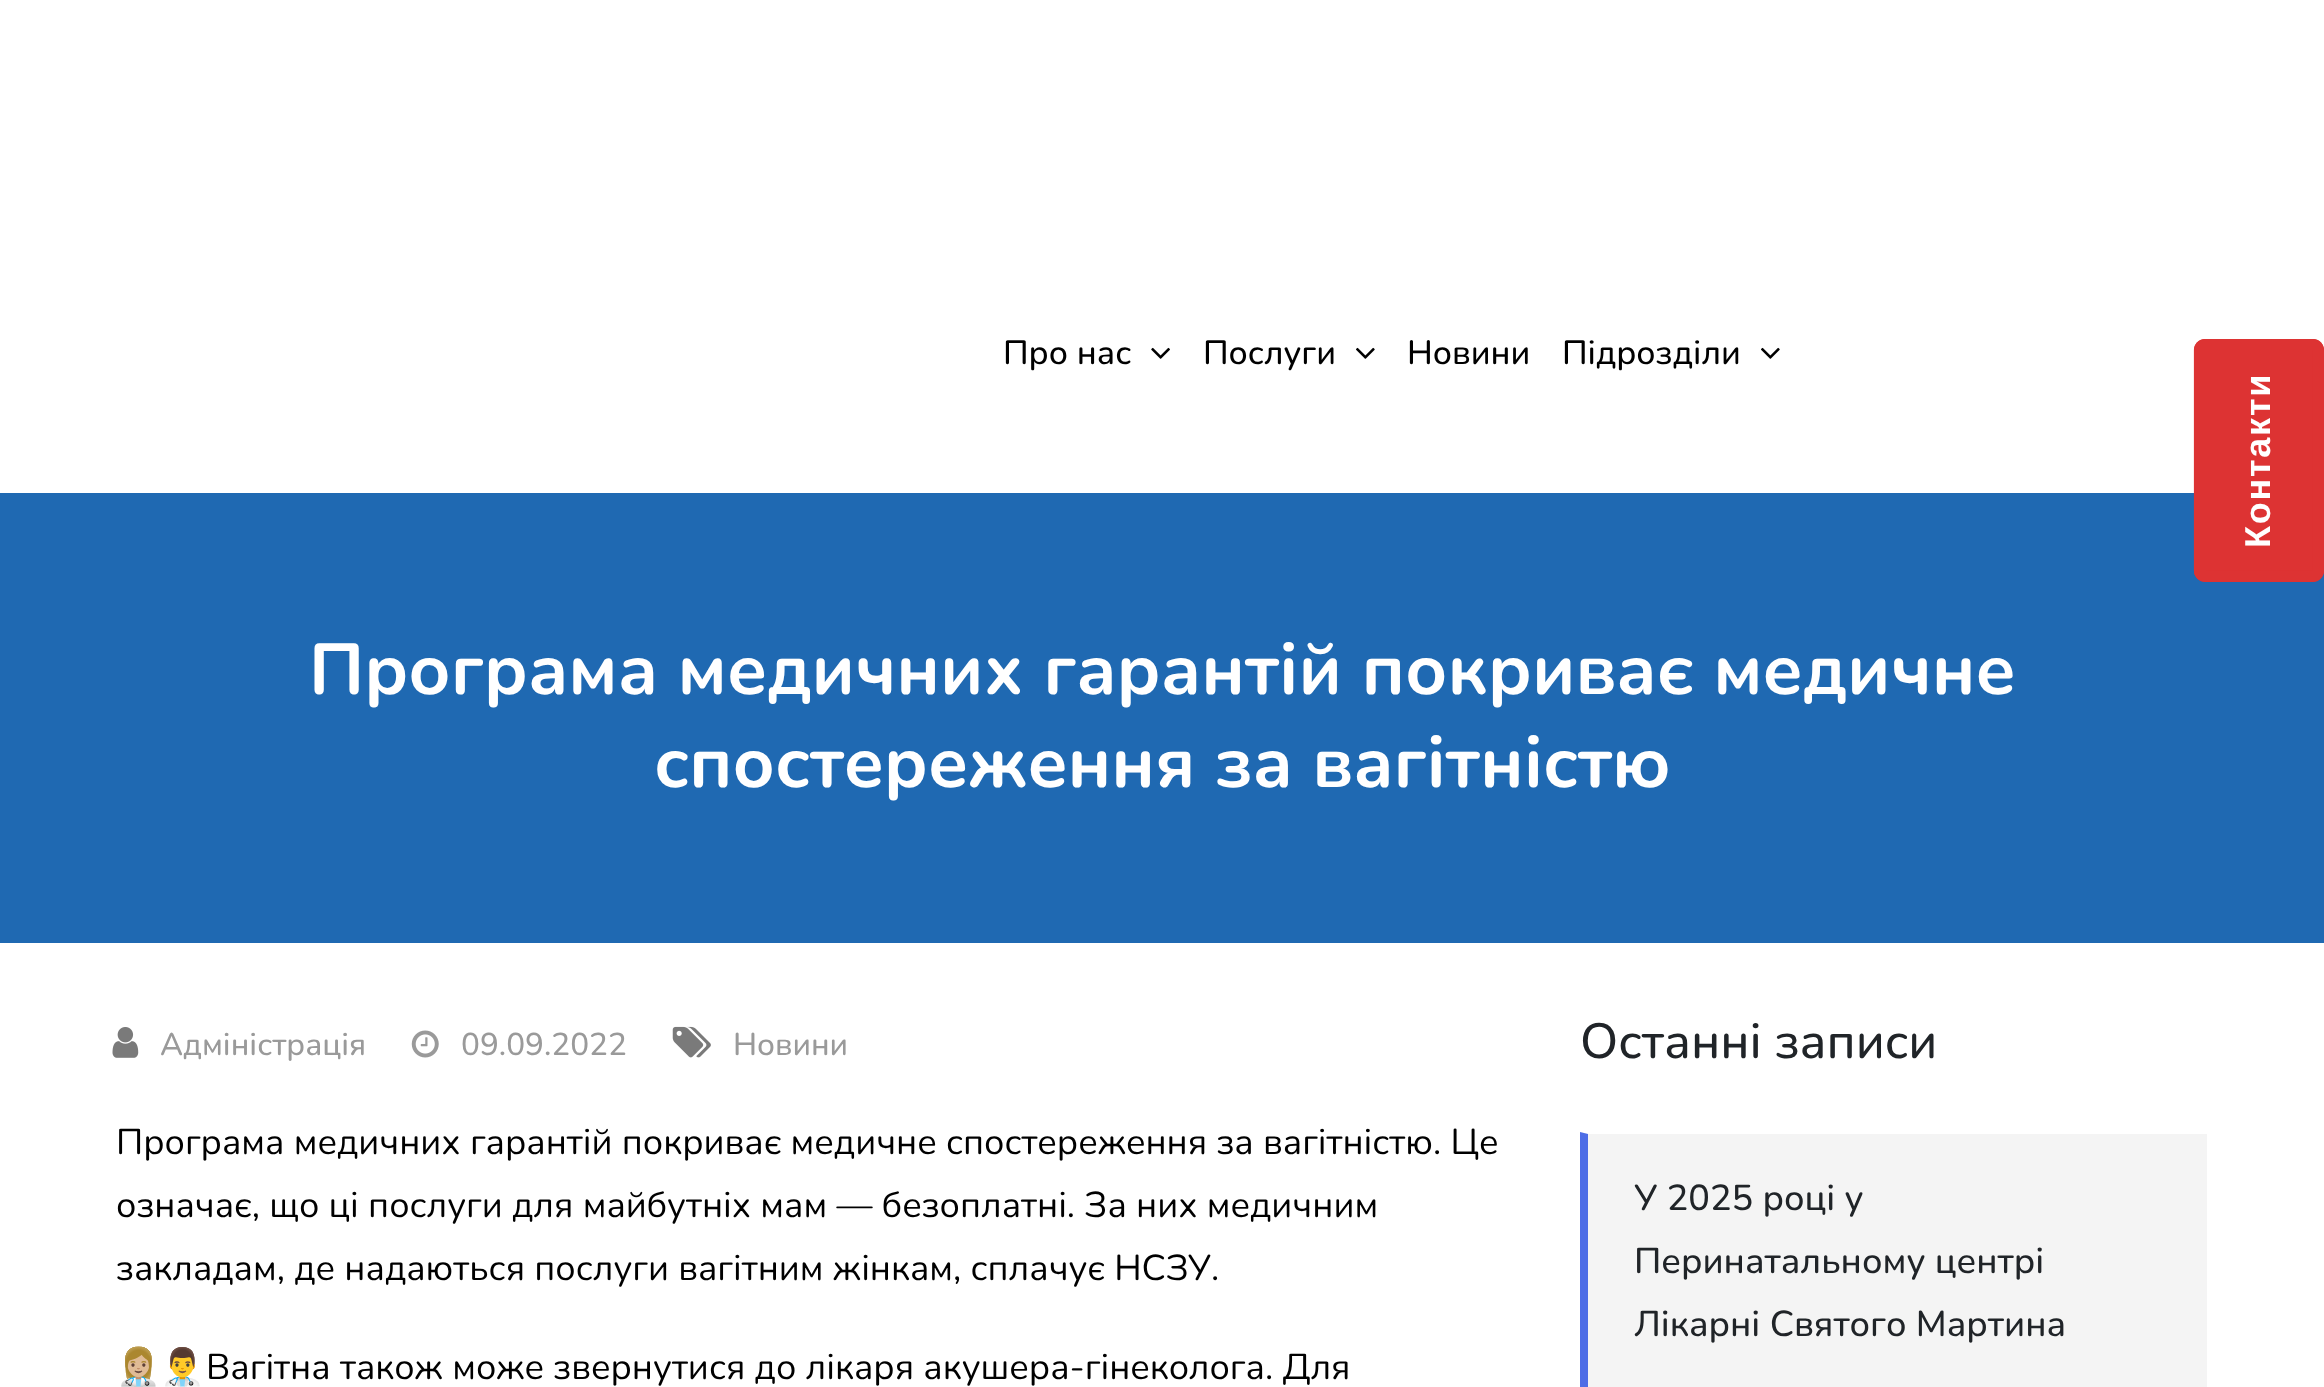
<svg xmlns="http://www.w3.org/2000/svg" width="2324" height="1387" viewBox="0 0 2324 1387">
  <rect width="100%" height="100%" fill="rgb(255,255,255)"/>
  <text x="1003" y="364" font-family="Nunito" font-size="33.75" font-weight="500" fill="rgb(0,0,0)">Про нас</text>
  <image x="1151" y="347" width="19" height="12" href="pic1.png"/>
  <text x="1203" y="364" font-family="Nunito" font-size="33.75" font-weight="500" fill="rgb(0,0,0)">Послуги</text>
  <image x="1356" y="347" width="19" height="12" href="pic2.png"/>
  <g font-family="Nunito" font-size="33.75" font-weight="500" fill="rgb(0,0,0)">
    <text x="1407" y="364">Новини</text>
    <text x="1562" y="364">Підрозділи</text>
  </g>
  <image x="1761" y="347" width="19" height="12" href="pic2.png"/>
  <rect x="0" y="493" width="2324" height="450" fill="rgb(31,105,178)"/>
  <path d="M2194 571V350C2194 344 2199 339 2205 339H2313C2319 339 2324 344 2324 350V571C2324 577 2319 582 2313 582H2205C2199 582 2194 577 2194 571Z" fill="rgb(221,51,51)"/>
  <path d="M2199.5 570.5V350C2199.5 347 2202 344.5 2205 344.5H2313C2316 344.5 2318.5 347 2318.5 350V570.5C2318.5 573.5 2316 576 2313 576H2205C2202 576 2199.5 573.5 2199.5 570.5Z" fill="none" stroke="rgb(221,51,51)" stroke-width="11.2"/>
  <text x="2270" y="548" transform="rotate(-90 2270 548)" font-family="Liberation Sans" font-size="36" font-weight="bold" letter-spacing="1.75" fill="rgb(255,255,255)">Контакти</text>
  <g font-family="Nunito" font-size="72" font-weight="bold" fill="rgb(255,255,255)">
    <text x="309" y="694">Програма медичних гарантій покриває медичне</text>
    <text x="654" y="787">спостереження за вагітністю</text>
  </g>
  <image x="112" y="1027" width="27" height="31" href="pic3.png"/>
  <text x="160" y="1055" font-family="Nunito" font-size="31.5" font-weight="500" fill="rgb(154,154,154)">Адміністрація</text>
  <image x="411" y="1030" width="28" height="28" href="pic4.png"/>
  <text x="461" y="1055" font-family="Nunito" font-size="31.5" font-weight="500" fill="rgb(154,154,154)">09.09.2022</text>
  <image x="672" y="1026" width="39" height="32" href="pic5.png"/>
  <text x="733" y="1055" font-family="Nunito" font-size="31.5" font-weight="500" fill="rgb(154,154,154)">Новини</text>
  <g font-family="Nunito" font-size="36" fill="rgb(0,0,0)">
    <text>
      <tspan x="116" y="1154">Програма медичних гарантій покриває медичне спостереження за вагітністю. Це</tspan>
      <tspan x="116" y="1217">означає, що ці послуги для майбутніх мам — безоплатні. За них медичним</tspan>
      <tspan x="116" y="1280">закладам, де надаються послуги вагітним жінкам, сплачує НСЗУ.</tspan>
    </text>
  </g>
  <text x="116" y="1379" font-family="Noto Color Emoji" font-size="36" fill="rgb(0,0,0)">👩🏼‍⚕️👨‍⚕️</text>
  <text x="206" y="1379" font-family="Nunito" font-size="36" fill="rgb(0,0,0)">Вагітна також може звернутися до лікаря акушера-гінеколога. Для</text>
  <text x="1580" y="1058" font-family="Nunito" font-size="49.5" font-weight="500" fill="rgb(32,36,40)">Останні записи</text>
  <rect x="1580" y="1132" width="627" height="255" fill="rgb(244,244,244)"/>
  <path d="M1580 1132H2207V1134H1588Z" fill="rgb(255,255,255)"/>
  <path d="M1580 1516V1132L1588 1134V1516Z" fill="rgb(77,109,230)"/>
  <g font-family="Nunito" font-size="36" font-weight="500" fill="rgb(32,36,40)">
    <text>
      <tspan x="1634" y="1210">У 2025 році у</tspan>
      <tspan x="1634" y="1273">Перинатальному центрі</tspan>
      <tspan x="1634" y="1336">Лікарні Святого Мартина</tspan>
    </text>
  </g>
</svg>
